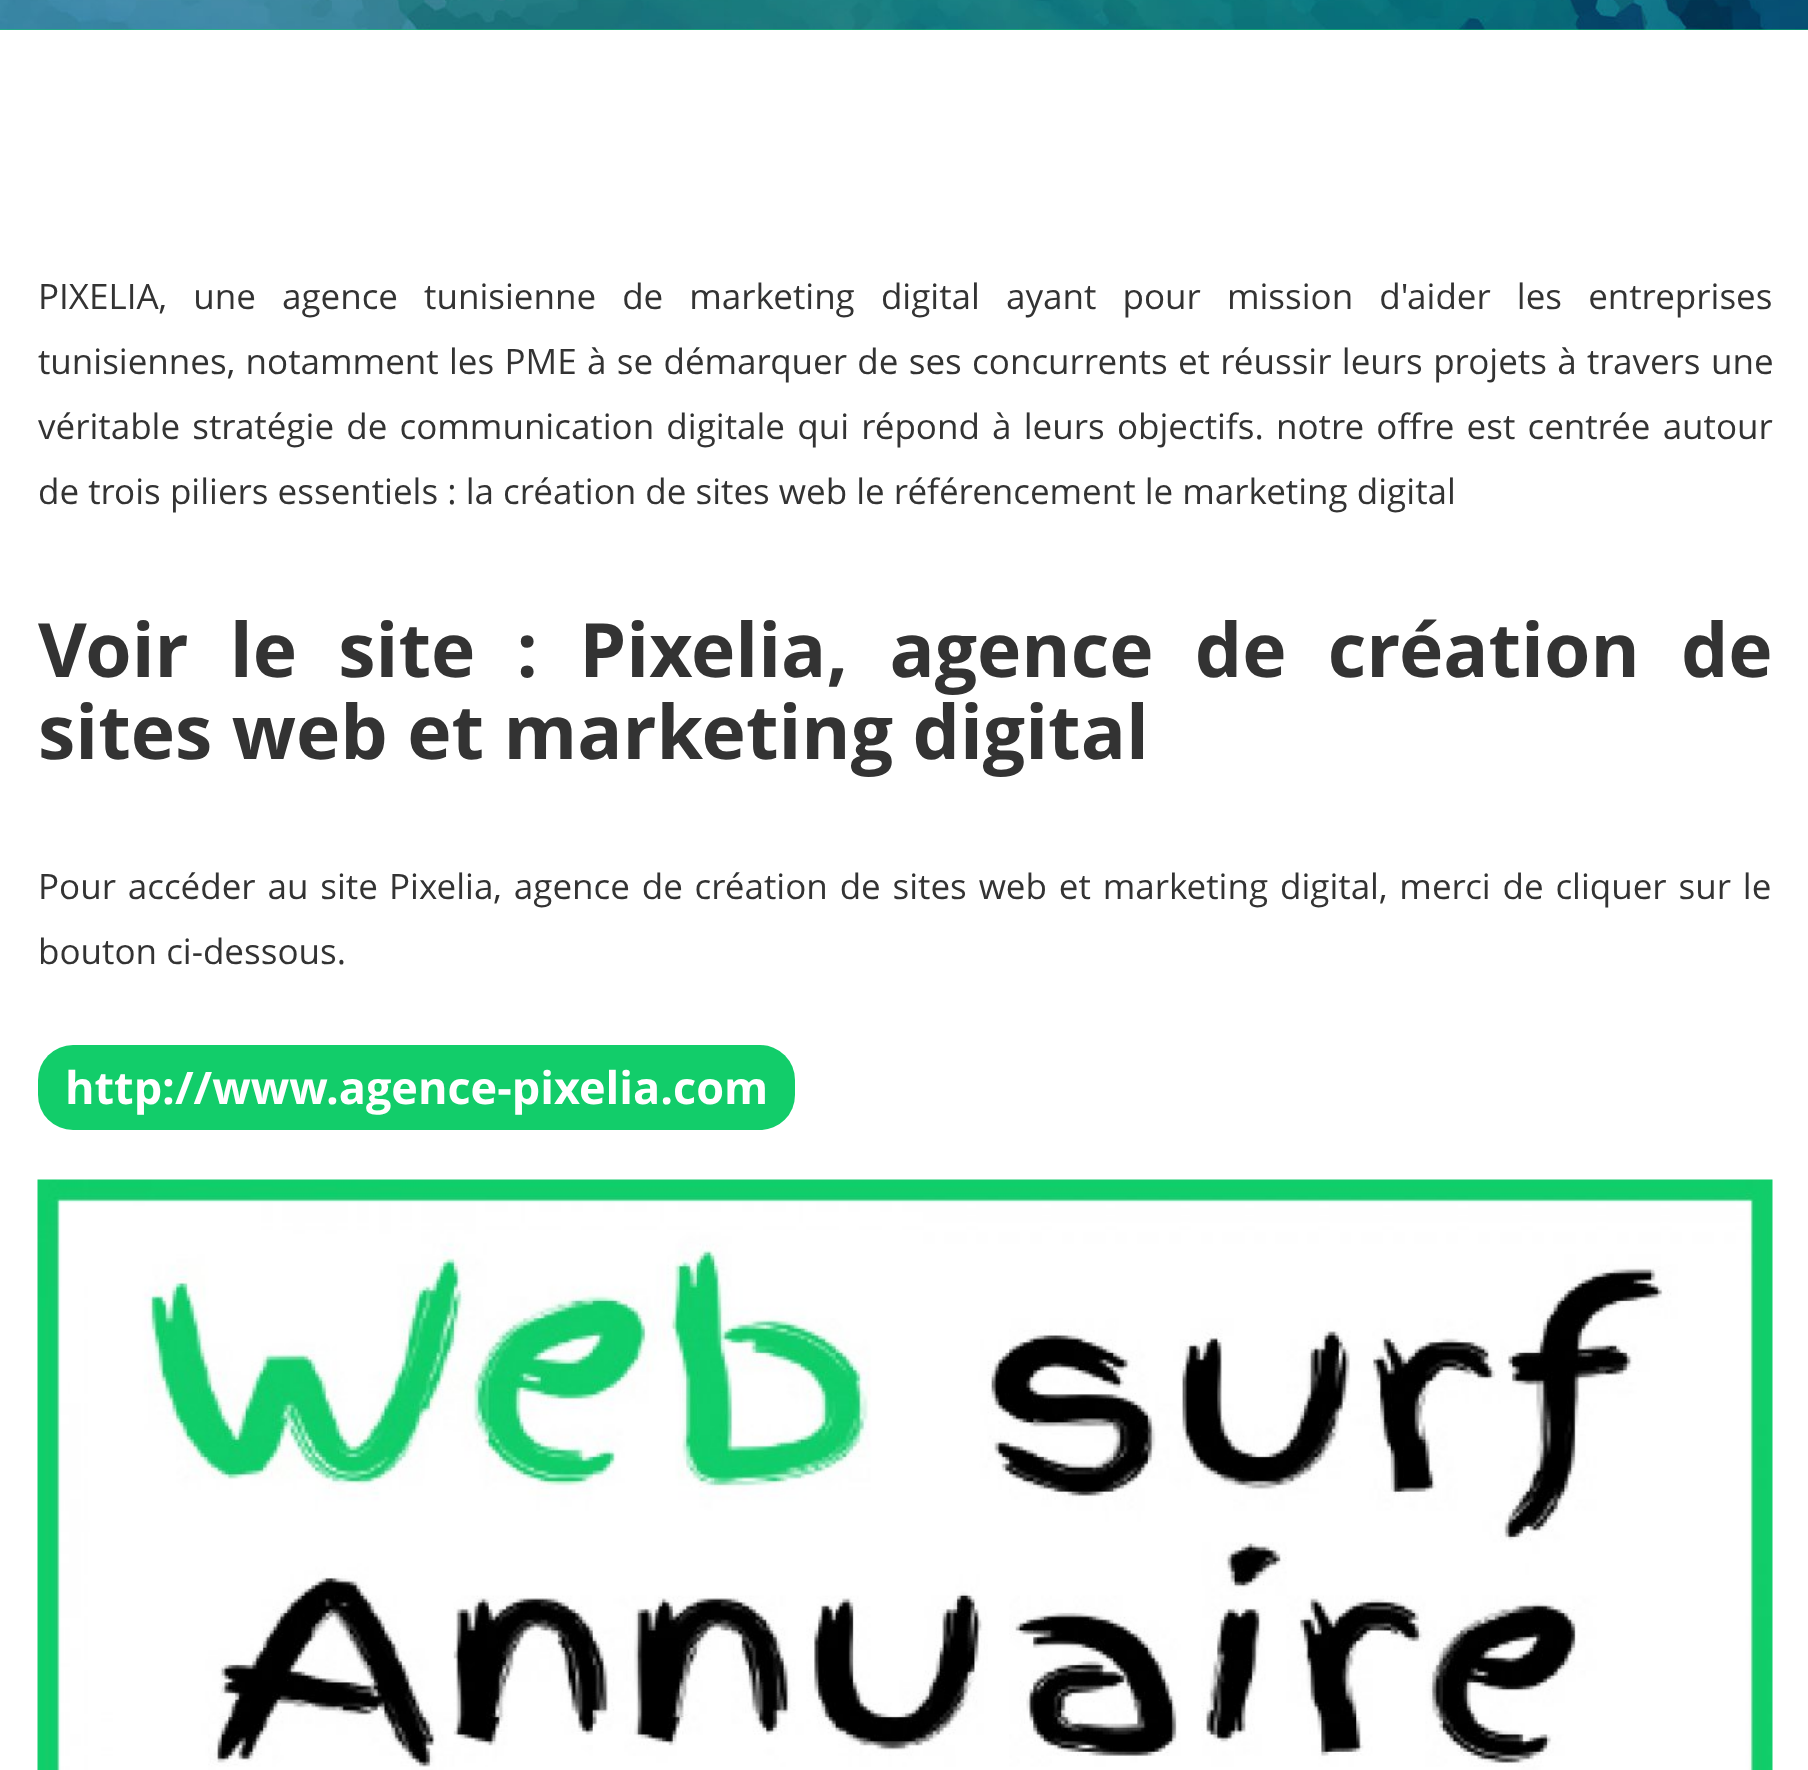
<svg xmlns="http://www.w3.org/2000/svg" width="1808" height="1770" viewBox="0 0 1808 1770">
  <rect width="100%" height="100%" fill="rgb(18,205,106)"/>
  <image x="0" y="0" width="1808" height="30" href="pic1.png"/>
  <rect x="0" y="30" width="1808" height="1740" fill="rgb(255,255,255)"/>
  <g font-family="Open Sans" font-size="35" fill="rgb(51,51,51)">
    <text>
      <tspan x="38" y="309" word-spacing="17">PIXELIA, une agence tunisienne de marketing digital ayant pour mission d'aider les entreprises</tspan>
      <tspan x="38" y="374" word-spacing="1.25">tunisiennes, notamment les PME à se démarquer de ses concurrents et réussir leurs projets à travers une</tspan>
      <tspan x="38" y="439" word-spacing="3.1">véritable stratégie de communication digitale qui répond à leurs objectifs. notre offre est centrée autour</tspan>
      <tspan x="38" y="504">de trois piliers essentiels : la création de sites web le référencement le marketing digital</tspan>
    </text>
  </g>
  <g font-family="Open Sans" font-size="75" font-weight="bold" fill="rgb(51,51,51)">
    <text>
      <tspan x="38" y="677" word-spacing="21.75">Voir le site : Pixelia, agence de création de</tspan>
      <tspan x="38" y="759">sites web et marketing digital</tspan>
    </text>
  </g>
  <g font-family="Open Sans" font-size="35" fill="rgb(51,51,51)">
    <text x="38" y="899" word-spacing="2.75">Pour accéder au site</text>
    <text x="389" y="899" word-spacing="2.75">Pixelia, agence de création de sites web et marketing digital, merci de cliquer sur le</text>
    <text x="38" y="964">bouton ci-dessous.</text>
  </g>
  <rect x="38" y="1045" width="757" height="85" rx="35" fill="rgb(18,205,106)"/>
  <text x="65" y="1104" font-family="Open Sans" font-size="45" font-weight="bold" fill="rgb(255,255,255)">http://www.agence-pixelia.com</text>
  <image x="37" y="1179" width="1736" height="591" href="pic2.png"/>
</svg>
